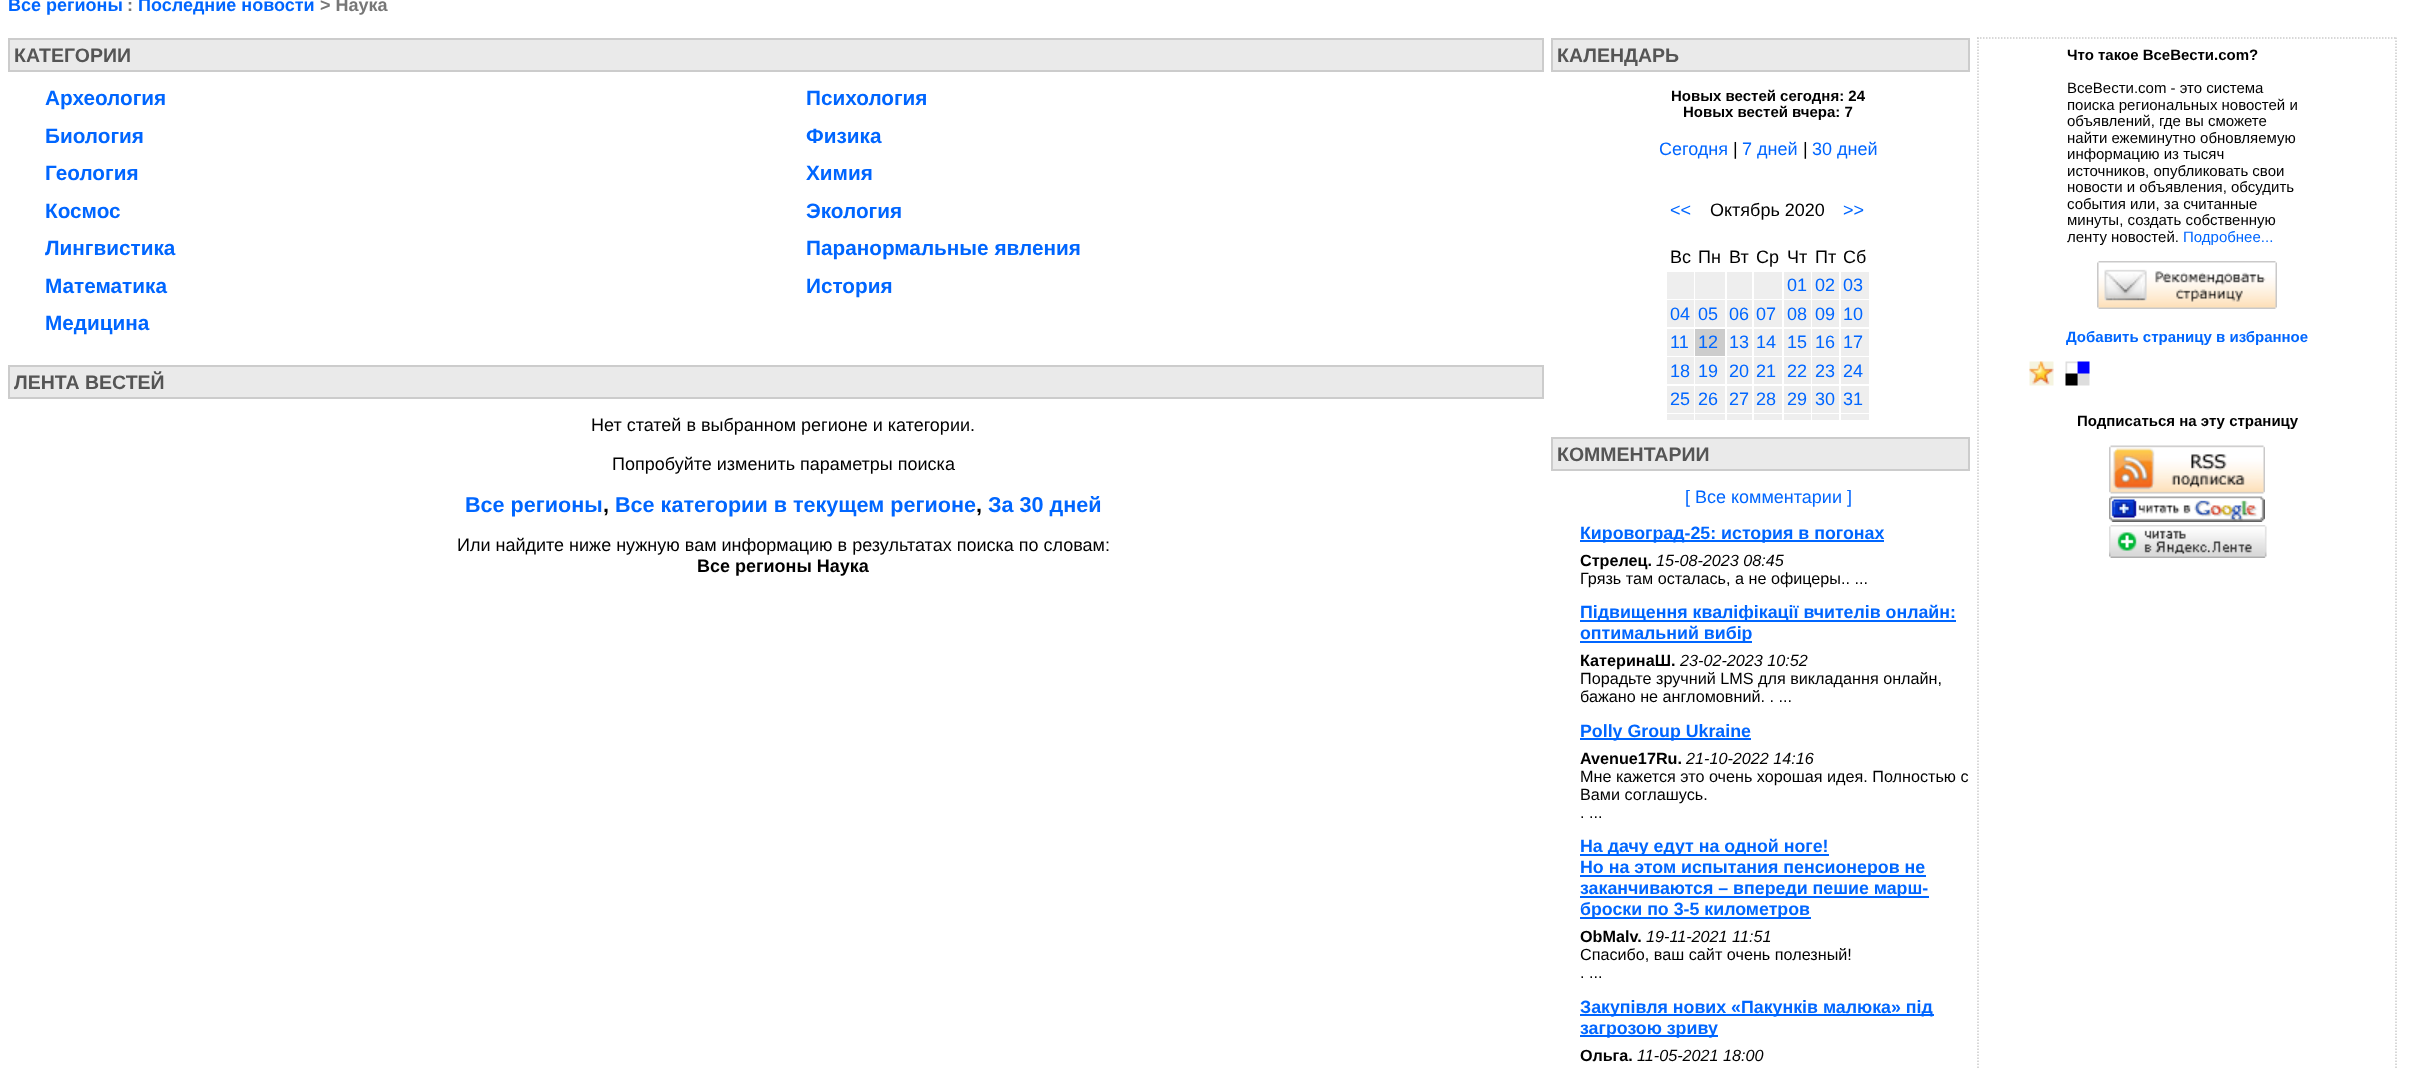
<svg xmlns="http://www.w3.org/2000/svg" width="2428" height="1068" viewBox="0 0 2428 1068">
  <rect width="100%" height="100%" fill="rgb(255,255,255)"/>
  <text x="8" y="11" font-family="Liberation Sans" font-size="18" font-weight="bold" fill="rgb(0,102,255)">Все регионы</text>
  <text x="127" y="11" font-family="Liberation Sans" font-size="18" font-weight="bold" fill="rgb(119,119,119)">:</text>
  <text x="138" y="11" font-family="Liberation Sans" font-size="18" font-weight="bold" fill="rgb(0,102,255)">Последние новости</text>
  <text x="320" y="11" font-family="Liberation Sans" font-size="18" font-weight="bold" fill="rgb(119,119,119)">&gt; Наука</text>
  <rect x="9" y="39" width="1534" height="32" fill="rgb(234,234,234)" stroke="rgb(204,204,204)" stroke-width="2"/>
  <text x="14" y="62" font-family="Liberation Sans" font-size="19.5" font-weight="bold" fill="rgb(85,85,85)">КАТЕГОРИИ</text>
  <g font-family="Liberation Sans" font-size="20.75" font-weight="bold" fill="rgb(0,102,255)">
    <text>
      <tspan x="45" y="105">Археология</tspan>
      <tspan x="45" y="143">Биология</tspan>
      <tspan x="45" y="180">Геология</tspan>
      <tspan x="45" y="218">Космос</tspan>
      <tspan x="45" y="255">Лингвистика</tspan>
      <tspan x="45" y="293">Математика</tspan>
      <tspan x="45" y="330">Медицина</tspan>
    </text>
    <text>
      <tspan x="806" y="105">Психология</tspan>
      <tspan x="806" y="143">Физика</tspan>
      <tspan x="806" y="180">Химия</tspan>
      <tspan x="806" y="218">Экология</tspan>
      <tspan x="806" y="255">Паранормальные явления</tspan>
      <tspan x="806" y="293">История</tspan>
    </text>
  </g>
  <rect x="9" y="366" width="1534" height="32" fill="rgb(234,234,234)" stroke="rgb(204,204,204)" stroke-width="2"/>
  <text x="14" y="389" font-family="Liberation Sans" font-size="19.5" font-weight="bold" fill="rgb(85,85,85)">ЛЕНТА ВЕСТЕЙ</text>
  <g font-family="Liberation Sans" font-size="18" fill="rgb(0,0,0)">
    <text x="591" y="431">Нет статей в выбранном регионе и категории.</text>
    <text x="612" y="470">Попробуйте изменить параметры поиска</text>
  </g>
  <text x="465" y="512" font-family="Liberation Sans" font-size="21.6" font-weight="bold" fill="rgb(0,102,255)">Все регионы</text>
  <text x="603" y="512" font-family="Liberation Sans" font-size="21.6" font-weight="bold" fill="rgb(0,0,0)">,</text>
  <text x="615" y="512" font-family="Liberation Sans" font-size="21.6" font-weight="bold" fill="rgb(0,102,255)">Все категории в текущем регионе</text>
  <text x="976" y="512" font-family="Liberation Sans" font-size="21.6" font-weight="bold" fill="rgb(0,0,0)">,</text>
  <text x="988" y="512" font-family="Liberation Sans" font-size="21.6" font-weight="bold" fill="rgb(0,102,255)">За 30 дней</text>
  <text x="457" y="551" font-family="Liberation Sans" font-size="18" fill="rgb(0,0,0)">Или найдите ниже нужную вам информацию в результатах поиска по словам:</text>
  <text x="697" y="572" font-family="Liberation Sans" font-size="18" font-weight="bold" fill="rgb(0,0,0)">Все регионы Наука</text>
  <rect x="1552" y="39" width="417" height="32" fill="rgb(234,234,234)" stroke="rgb(204,204,204)" stroke-width="2"/>
  <text x="1557" y="62" font-family="Liberation Sans" font-size="19.5" font-weight="bold" fill="rgb(85,85,85)">КАЛЕНДАРЬ</text>
  <g font-family="Liberation Sans" font-size="15" font-weight="bold" fill="rgb(0,0,0)">
    <text x="1671" y="101">Новых вестей сегодня: 24</text>
    <text x="1683" y="117">Новых вестей вчера: 7</text>
  </g>
  <text x="1659" y="155" font-family="Liberation Sans" font-size="18" fill="rgb(0,102,255)">Сегодня</text>
  <text x="1733" y="155" font-family="Liberation Sans" font-size="18" fill="rgb(0,0,0)">|</text>
  <text x="1742" y="155" font-family="Liberation Sans" font-size="18" fill="rgb(0,102,255)">7 дней</text>
  <text x="1803" y="155" font-family="Liberation Sans" font-size="18" fill="rgb(0,0,0)">|</text>
  <g font-family="Liberation Sans" font-size="18" fill="rgb(0,102,255)">
    <text x="1812" y="155">30 дней</text>
    <text x="1670" y="216">&lt;&lt;</text>
  </g>
  <text x="1710" y="216" font-family="Liberation Sans" font-size="18" fill="rgb(0,0,0)">Октябрь 2020</text>
  <text x="1843" y="216" font-family="Liberation Sans" font-size="18" fill="rgb(0,102,255)">&gt;&gt;</text>
  <g font-family="Liberation Sans" font-size="18" fill="rgb(0,0,0)">
    <text x="1670" y="263">Вс</text>
    <text x="1698" y="263">Пн</text>
    <text x="1729" y="263">Вт</text>
    <text x="1756" y="263">Ср</text>
    <text x="1787" y="263">Чт</text>
    <text x="1815" y="263">Пт</text>
    <text x="1843" y="263">Сб</text>
  </g>
  <rect x="1667" y="272" width="27" height="27" fill="rgb(238,238,238)"/>
  <rect x="1695" y="272" width="30" height="27" fill="rgb(238,238,238)"/>
  <rect x="1727" y="272" width="25" height="27" fill="rgb(238,238,238)"/>
  <rect x="1754" y="272" width="28" height="27" fill="rgb(238,238,238)"/>
  <rect x="1784" y="272" width="27" height="27" fill="rgb(238,238,238)"/>
  <text x="1787" y="291" font-family="Liberation Sans" font-size="18" fill="rgb(0,102,255)">01</text>
  <rect x="1812" y="272" width="27" height="27" fill="rgb(238,238,238)"/>
  <text x="1815" y="291" font-family="Liberation Sans" font-size="18" fill="rgb(0,102,255)">02</text>
  <rect x="1841" y="272" width="28" height="27" fill="rgb(238,238,238)"/>
  <text x="1843" y="291" font-family="Liberation Sans" font-size="18" fill="rgb(0,102,255)">03</text>
  <rect x="1667" y="300" width="27" height="27" fill="rgb(238,238,238)"/>
  <text x="1670" y="320" font-family="Liberation Sans" font-size="18" fill="rgb(0,102,255)">04</text>
  <rect x="1695" y="300" width="30" height="27" fill="rgb(238,238,238)"/>
  <text x="1698" y="320" font-family="Liberation Sans" font-size="18" fill="rgb(0,102,255)">05</text>
  <rect x="1727" y="300" width="25" height="27" fill="rgb(238,238,238)"/>
  <text x="1729" y="320" font-family="Liberation Sans" font-size="18" fill="rgb(0,102,255)">06</text>
  <rect x="1754" y="300" width="28" height="27" fill="rgb(238,238,238)"/>
  <text x="1756" y="320" font-family="Liberation Sans" font-size="18" fill="rgb(0,102,255)">07</text>
  <rect x="1784" y="300" width="27" height="27" fill="rgb(238,238,238)"/>
  <text x="1787" y="320" font-family="Liberation Sans" font-size="18" fill="rgb(0,102,255)">08</text>
  <rect x="1812" y="300" width="27" height="27" fill="rgb(238,238,238)"/>
  <text x="1815" y="320" font-family="Liberation Sans" font-size="18" fill="rgb(0,102,255)">09</text>
  <rect x="1841" y="300" width="28" height="27" fill="rgb(238,238,238)"/>
  <text x="1843" y="320" font-family="Liberation Sans" font-size="18" fill="rgb(0,102,255)">10</text>
  <rect x="1667" y="329" width="27" height="27" fill="rgb(238,238,238)"/>
  <text x="1670" y="348" font-family="Liberation Sans" font-size="18" fill="rgb(0,102,255)">11</text>
  <rect x="1695" y="329" width="30" height="27" fill="rgb(204,204,204)"/>
  <text x="1698" y="348" font-family="Liberation Sans" font-size="18" fill="rgb(0,102,255)">12</text>
  <rect x="1727" y="329" width="25" height="27" fill="rgb(238,238,238)"/>
  <text x="1729" y="348" font-family="Liberation Sans" font-size="18" fill="rgb(0,102,255)">13</text>
  <rect x="1754" y="329" width="28" height="27" fill="rgb(238,238,238)"/>
  <text x="1756" y="348" font-family="Liberation Sans" font-size="18" fill="rgb(0,102,255)">14</text>
  <rect x="1784" y="329" width="27" height="27" fill="rgb(238,238,238)"/>
  <text x="1787" y="348" font-family="Liberation Sans" font-size="18" fill="rgb(0,102,255)">15</text>
  <rect x="1812" y="329" width="27" height="27" fill="rgb(238,238,238)"/>
  <text x="1815" y="348" font-family="Liberation Sans" font-size="18" fill="rgb(0,102,255)">16</text>
  <rect x="1841" y="329" width="28" height="27" fill="rgb(238,238,238)"/>
  <text x="1843" y="348" font-family="Liberation Sans" font-size="18" fill="rgb(0,102,255)">17</text>
  <rect x="1667" y="357" width="27" height="27" fill="rgb(238,238,238)"/>
  <text x="1670" y="377" font-family="Liberation Sans" font-size="18" fill="rgb(0,102,255)">18</text>
  <rect x="1695" y="357" width="30" height="27" fill="rgb(238,238,238)"/>
  <text x="1698" y="377" font-family="Liberation Sans" font-size="18" fill="rgb(0,102,255)">19</text>
  <rect x="1727" y="357" width="25" height="27" fill="rgb(238,238,238)"/>
  <text x="1729" y="377" font-family="Liberation Sans" font-size="18" fill="rgb(0,102,255)">20</text>
  <rect x="1754" y="357" width="28" height="27" fill="rgb(238,238,238)"/>
  <text x="1756" y="377" font-family="Liberation Sans" font-size="18" fill="rgb(0,102,255)">21</text>
  <rect x="1784" y="357" width="27" height="27" fill="rgb(238,238,238)"/>
  <text x="1787" y="377" font-family="Liberation Sans" font-size="18" fill="rgb(0,102,255)">22</text>
  <rect x="1812" y="357" width="27" height="27" fill="rgb(238,238,238)"/>
  <text x="1815" y="377" font-family="Liberation Sans" font-size="18" fill="rgb(0,102,255)">23</text>
  <rect x="1841" y="357" width="28" height="27" fill="rgb(238,238,238)"/>
  <text x="1843" y="377" font-family="Liberation Sans" font-size="18" fill="rgb(0,102,255)">24</text>
  <rect x="1667" y="386" width="27" height="27" fill="rgb(238,238,238)"/>
  <text x="1670" y="405" font-family="Liberation Sans" font-size="18" fill="rgb(0,102,255)">25</text>
  <rect x="1695" y="386" width="30" height="27" fill="rgb(238,238,238)"/>
  <text x="1698" y="405" font-family="Liberation Sans" font-size="18" fill="rgb(0,102,255)">26</text>
  <rect x="1727" y="386" width="25" height="27" fill="rgb(238,238,238)"/>
  <text x="1729" y="405" font-family="Liberation Sans" font-size="18" fill="rgb(0,102,255)">27</text>
  <rect x="1754" y="386" width="28" height="27" fill="rgb(238,238,238)"/>
  <text x="1756" y="405" font-family="Liberation Sans" font-size="18" fill="rgb(0,102,255)">28</text>
  <rect x="1784" y="386" width="27" height="27" fill="rgb(238,238,238)"/>
  <text x="1787" y="405" font-family="Liberation Sans" font-size="18" fill="rgb(0,102,255)">29</text>
  <rect x="1812" y="386" width="27" height="27" fill="rgb(238,238,238)"/>
  <text x="1815" y="405" font-family="Liberation Sans" font-size="18" fill="rgb(0,102,255)">30</text>
  <rect x="1841" y="386" width="28" height="27" fill="rgb(238,238,238)"/>
  <text x="1843" y="405" font-family="Liberation Sans" font-size="18" fill="rgb(0,102,255)">31</text>
  <rect x="1667" y="414" width="27" height="6" fill="rgb(238,238,238)"/>
  <rect x="1695" y="414" width="30" height="6" fill="rgb(238,238,238)"/>
  <rect x="1727" y="414" width="25" height="6" fill="rgb(238,238,238)"/>
  <rect x="1754" y="414" width="28" height="6" fill="rgb(238,238,238)"/>
  <rect x="1784" y="414" width="27" height="6" fill="rgb(238,238,238)"/>
  <rect x="1812" y="414" width="27" height="6" fill="rgb(238,238,238)"/>
  <rect x="1841" y="414" width="28" height="6" fill="rgb(238,238,238)"/>
  <rect x="1552" y="438" width="417" height="32" fill="rgb(234,234,234)" stroke="rgb(204,204,204)" stroke-width="2"/>
  <text x="1557" y="461" font-family="Liberation Sans" font-size="19.5" font-weight="bold" fill="rgb(85,85,85)">КОММЕНТАРИИ</text>
  <text x="1685" y="503" font-family="Liberation Sans" font-size="18" fill="rgb(0,102,255)">[ Все комментарии ]</text>
  <rect x="1580" y="540" width="304" height="2" fill="rgb(0,102,255)"/>
  <text x="1580" y="539" font-family="Liberation Sans" font-size="17.8" font-weight="bold" fill="rgb(0,102,255)">Кировоград-25: история в погонах</text>
  <text x="1580" y="566" font-family="Liberation Sans" font-size="16.2" font-weight="bold" fill="rgb(0,0,0)">Стрелец.</text>
  <text x="1656" y="566" font-family="Liberation Sans" font-size="16.2" font-style="italic" fill="rgb(0,0,0)">15-08-2023 08:45</text>
  <text x="1580" y="584" font-family="Liberation Sans" font-size="16.2" fill="rgb(0,0,0)">Грязь там осталась, а не офицеры.. ...</text>
  <rect x="1580" y="620" width="376" height="2" fill="rgb(0,102,255)"/>
  <text x="1580" y="618" font-family="Liberation Sans" font-size="17.8" font-weight="bold" fill="rgb(0,102,255)">Підвищення кваліфікації вчителів онлайн:</text>
  <rect x="1580" y="641" width="172" height="2" fill="rgb(0,102,255)"/>
  <text x="1580" y="639" font-family="Liberation Sans" font-size="17.8" font-weight="bold" fill="rgb(0,102,255)">оптимальний вибір</text>
  <text x="1580" y="666" font-family="Liberation Sans" font-size="16.2" font-weight="bold" fill="rgb(0,0,0)">КатеринаШ.</text>
  <text x="1680" y="666" font-family="Liberation Sans" font-size="16.2" font-style="italic" fill="rgb(0,0,0)">23-02-2023 10:52</text>
  <g font-family="Liberation Sans" font-size="16.2" fill="rgb(0,0,0)">
    <text>
      <tspan x="1580" y="684">Порадьте зручний LMS для викладання онлайн,</tspan>
      <tspan x="1580" y="702">бажано не англомовний. . ...</tspan>
    </text>
  </g>
  <rect x="1580" y="738" width="171" height="2" fill="rgb(0,102,255)"/>
  <text x="1580" y="737" font-family="Liberation Sans" font-size="17.8" font-weight="bold" fill="rgb(0,102,255)">Polly Group Ukraine</text>
  <text x="1580" y="764" font-family="Liberation Sans" font-size="16.2" font-weight="bold" fill="rgb(0,0,0)">Avenue17Ru.</text>
  <text x="1686" y="764" font-family="Liberation Sans" font-size="16.2" font-style="italic" fill="rgb(0,0,0)">21-10-2022 14:16</text>
  <g font-family="Liberation Sans" font-size="16.2" fill="rgb(0,0,0)">
    <text>
      <tspan x="1580" y="782">Мне кажется это очень хорошая идея. Полностью с</tspan>
      <tspan x="1580" y="800">Вами соглашусь.</tspan>
      <tspan x="1580" y="818">. ...</tspan>
    </text>
  </g>
  <rect x="1580" y="854" width="249" height="2" fill="rgb(0,102,255)"/>
  <text x="1580" y="852" font-family="Liberation Sans" font-size="17.8" font-weight="bold" fill="rgb(0,102,255)">На дачу едут на одной ноге!</text>
  <rect x="1580" y="875" width="346" height="2" fill="rgb(0,102,255)"/>
  <text x="1580" y="873" font-family="Liberation Sans" font-size="17.8" font-weight="bold" fill="rgb(0,102,255)">Но на этом испытания пенсионеров не</text>
  <rect x="1580" y="896" width="349" height="2" fill="rgb(0,102,255)"/>
  <text x="1580" y="894" font-family="Liberation Sans" font-size="17.8" font-weight="bold" fill="rgb(0,102,255)">заканчиваются – впереди пешие марш-</text>
  <rect x="1580" y="917" width="231" height="2" fill="rgb(0,102,255)"/>
  <text x="1580" y="915" font-family="Liberation Sans" font-size="17.8" font-weight="bold" fill="rgb(0,102,255)">броски по 3-5 километров</text>
  <text x="1580" y="942" font-family="Liberation Sans" font-size="16.2" font-weight="bold" fill="rgb(0,0,0)">ОbMalv.</text>
  <text x="1646" y="942" font-family="Liberation Sans" font-size="16.2" font-style="italic" fill="rgb(0,0,0)">19-11-2021 11:51</text>
  <g font-family="Liberation Sans" font-size="16.2" fill="rgb(0,0,0)">
    <text>
      <tspan x="1580" y="960">Спасибо, ваш сайт очень полезный!</tspan>
      <tspan x="1580" y="978">. ...</tspan>
    </text>
  </g>
  <rect x="1580" y="1014" width="354" height="2" fill="rgb(0,102,255)"/>
  <text x="1580" y="1013" font-family="Liberation Sans" font-size="17.8" font-weight="bold" fill="rgb(0,102,255)">Закупівля нових «Пакунків малюка» під</text>
  <rect x="1580" y="1035" width="138" height="2" fill="rgb(0,102,255)"/>
  <text x="1580" y="1034" font-family="Liberation Sans" font-size="17.8" font-weight="bold" fill="rgb(0,102,255)">загрозою зриву</text>
  <text x="1580" y="1061" font-family="Liberation Sans" font-size="16.2" font-weight="bold" fill="rgb(0,0,0)">Ольга.</text>
  <text x="1637" y="1061" font-family="Liberation Sans" font-size="16.2" font-style="italic" fill="rgb(0,0,0)">11-05-2021 18:00</text>
  <path d="M1977 38H2397" fill="none" stroke="rgb(204,204,204)" stroke-width="1.5" stroke-dasharray="1.5 1.5"/>
  <path d="M2396 37.5V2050.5" fill="none" stroke="rgb(204,204,204)" stroke-width="1.5" stroke-dasharray="1.5 1.5"/>
  <path d="M1978 37.5V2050.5" fill="none" stroke="rgb(204,204,204)" stroke-width="1.5" stroke-dasharray="1.5 1.5"/>
  <text x="2067" y="60" font-family="Liberation Sans" font-size="15" font-weight="bold" fill="rgb(0,0,0)">Что такое ВсеВести.com?</text>
  <g font-family="Liberation Sans" font-size="15" fill="rgb(0,0,0)">
    <text>
      <tspan x="2067" y="93">ВсеВести.com - это система</tspan>
      <tspan x="2067" y="110">поиска региональных новостей и</tspan>
      <tspan x="2067" y="126">объявлений, где вы сможете</tspan>
      <tspan x="2067" y="143">найти ежеминутно обновляемую</tspan>
      <tspan x="2067" y="159">информацию из тысяч</tspan>
      <tspan x="2067" y="176">источников, опубликовать свои</tspan>
      <tspan x="2067" y="192">новости и объявления, обсудить</tspan>
      <tspan x="2067" y="209">события или, за считанные</tspan>
      <tspan x="2067" y="225">минуты, создать собственную</tspan>
      <tspan x="2067" y="242">ленту новостей.</tspan>
    </text>
  </g>
  <text x="2183" y="242" font-family="Liberation Sans" font-size="15" fill="rgb(0,102,255)">Подробнее...</text>
  <image x="2097" y="261" width="180" height="48" href="pic1.png"/>
  <text x="2066" y="342" font-family="Liberation Sans" font-size="15" font-weight="bold" fill="rgb(0,102,255)">Добавить страницу в избранное</text>
  <image x="2029" y="361" width="25" height="25" href="pic2.png"/>
  <image x="2065" y="361" width="25" height="25" href="pic3.png"/>
  <text x="2077" y="426" font-family="Liberation Sans" font-size="15" font-weight="bold" fill="rgb(0,0,0)">Подписаться на эту страницу</text>
  <image x="2109" y="445" width="156" height="49" href="pic4.png"/>
  <image x="2109" y="496" width="156" height="26" href="pic5.png"/>
  <image x="2109" y="525" width="158" height="33" href="pic6.png"/>
</svg>
